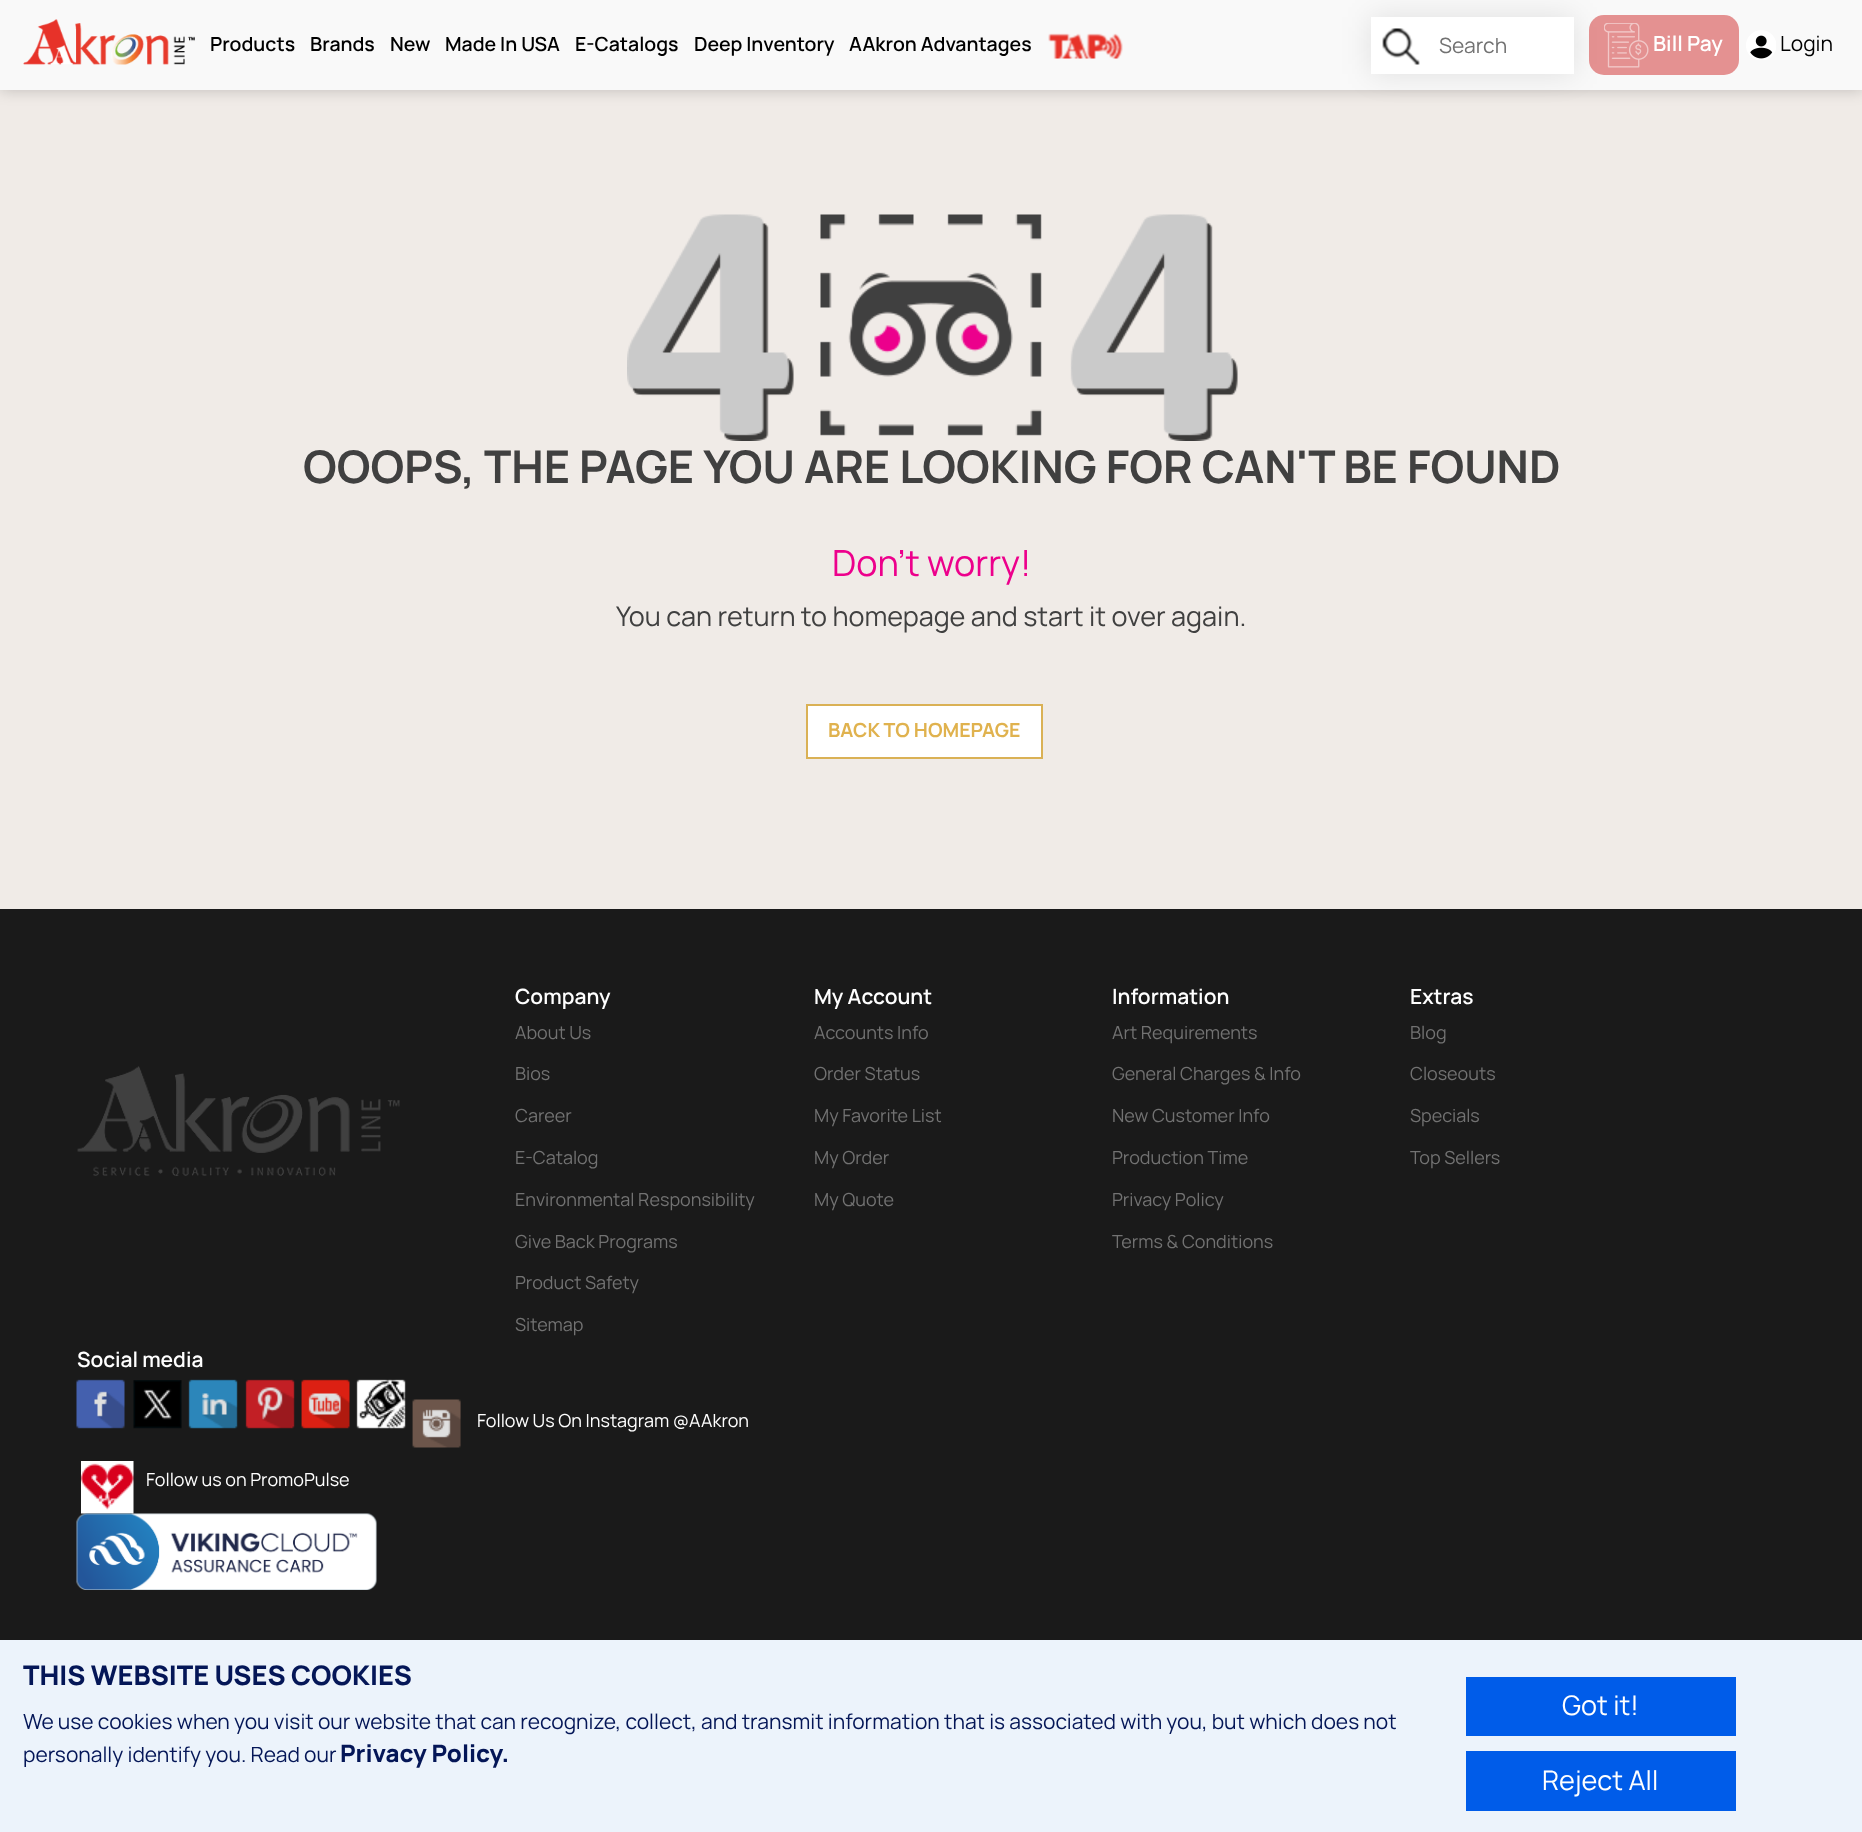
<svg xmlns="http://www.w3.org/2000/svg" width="1862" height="1832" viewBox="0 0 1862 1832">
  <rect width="100%" height="100%" fill="rgb(240,235,231)"/>
  <rect x="0" y="0" width="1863" height="90" fill="rgba(0,0,0,0.2)" filter="blur(7.5px)"/>
  <rect x="0" y="0" width="1862" height="90" fill="rgb(249,249,249)"/>
  <image x="23" y="19" width="172" height="46" href="pic1.png"/>
  <g font-family="Manrope" font-size="19.5" font-weight="600" fill="rgb(0,0,0)">
    <text x="210" y="51">Products</text>
    <text x="310" y="51">Brands</text>
    <text x="390" y="51">New</text>
    <text x="445" y="51">Made In USA</text>
    <text x="575" y="51">E-Catalogs</text>
    <text x="694" y="51">Deep Inventory</text>
    <text x="849" y="51">AAkron Advantages</text>
  </g>
  <image x="1048" y="33" width="75" height="26" href="pic2.png"/>
  <rect x="1371" y="17" width="203" height="57" fill="rgba(0,0,0,0.1)" filter="blur(15px)"/>
  <rect x="1371" y="17" width="203" height="57" fill="rgb(255,255,255)"/>
  <image x="1382" y="28" width="38" height="37" href="pic3.png"/>
  <text x="1439" y="53" font-family="Manrope" font-size="21" fill="rgb(114,114,114)">Search</text>
  <rect x="1589" y="15" width="150" height="60" rx="15" fill="rgba(207,41,41,0.5)"/>
  <image x="1604" y="23" width="45" height="45" href="pic4.png"/>
  <text x="1653" y="51" font-family="Manrope" font-size="21" font-weight="600" fill="rgb(255,255,255)">Bill Pay</text>
  <image x="1746" y="30" width="30" height="30" href="pic5.png"/>
  <text x="1780" y="51" font-family="Manrope" font-size="21" fill="rgb(0,0,0)">Login</text>
  <image x="627" y="214" width="611" height="227" href="pic6.png"/>
  <text x="303" y="483" font-family="Manrope" font-size="45" font-weight="bold" fill="rgb(64,64,64)">OOOPS, THE PAGE YOU ARE LOOKING FOR CAN'T BE FOUND</text>
  <text x="832" y="576" font-family="Manrope" font-size="36" fill="rgb(237,0,140)">Don't worry!</text>
  <text x="616" y="626" font-family="Manrope" font-size="27" fill="rgb(64,64,64)">You can return to homepage and start it over again.</text>
  <rect x="807" y="705" width="235" height="53" fill="rgb(255,255,255)" stroke="rgb(218,177,85)" stroke-width="2"/>
  <text x="828" y="737" font-family="Manrope" font-size="19.5" font-weight="bold" fill="rgb(224,178,78)">BACK TO HOMEPAGE</text>
  <rect x="0" y="909" width="1862" height="731" fill="rgb(26,26,26)"/>
  <image x="77" y="1066" width="323" height="110" href="pic7.png"/>
  <text x="515" y="1004" font-family="Manrope" font-size="21" font-weight="600" fill="rgb(255,255,255)">Company</text>
  <g font-family="Manrope" font-size="18" fill="rgb(114,114,114)">
    <text x="515" y="1039">About Us</text>
    <text x="515" y="1080">Bios</text>
    <text x="515" y="1122">Career</text>
    <text x="515" y="1164">E-Catalog</text>
    <text x="515" y="1206">Environmental Responsibility</text>
    <text x="515" y="1248">Give Back Programs</text>
    <text x="515" y="1289">Product Safety</text>
    <text x="515" y="1331">Sitemap</text>
  </g>
  <text x="814" y="1004" font-family="Manrope" font-size="21" font-weight="600" fill="rgb(255,255,255)">My Account</text>
  <g font-family="Manrope" font-size="18" fill="rgb(114,114,114)">
    <text x="814" y="1039">Accounts Info</text>
    <text x="814" y="1080">Order Status</text>
    <text x="814" y="1122">My Favorite List</text>
    <text x="814" y="1164">My Order</text>
    <text x="814" y="1206">My Quote</text>
  </g>
  <text x="1112" y="1004" font-family="Manrope" font-size="21" font-weight="600" fill="rgb(255,255,255)">Information</text>
  <g font-family="Manrope" font-size="18" fill="rgb(114,114,114)">
    <text x="1112" y="1039">Art Requirements</text>
    <text x="1112" y="1080">General Charges &amp; Info</text>
    <text x="1112" y="1122">New Customer Info</text>
    <text x="1112" y="1164">Production Time</text>
    <text x="1112" y="1206">Privacy Policy</text>
    <text x="1112" y="1248">Terms &amp; Conditions</text>
  </g>
  <text x="1410" y="1004" font-family="Manrope" font-size="21" font-weight="600" fill="rgb(255,255,255)">Extras</text>
  <g font-family="Manrope" font-size="18" fill="rgb(114,114,114)">
    <text x="1410" y="1039">Blog</text>
    <text x="1410" y="1080">Closeouts</text>
    <text x="1410" y="1122">Specials</text>
    <text x="1410" y="1164">Top Sellers</text>
  </g>
  <text x="77" y="1367" font-family="Manrope" font-size="21" font-weight="600" fill="rgb(255,255,255)">Social media</text>
  <image x="76" y="1379" width="49" height="50" href="pic8.png"/>
  <image x="133" y="1380" width="49" height="49" href="pic9.png"/>
  <image x="188" y="1379" width="50" height="50" href="pic10.png"/>
  <image x="245" y="1379" width="50" height="50" href="pic11.png"/>
  <image x="301" y="1379" width="49" height="50" href="pic12.png"/>
  <image x="356" y="1379" width="50" height="50" href="pic13.png"/>
  <image x="412" y="1399" width="49" height="49" href="pic14.png"/>
  <text x="477" y="1427" font-family="Manrope" font-size="18" fill="rgb(255,255,255)">Follow Us On Instagram @AAkron</text>
  <image x="81" y="1461" width="53" height="53" href="pic15.png"/>
  <text x="146" y="1486" font-family="Manrope" font-size="18" fill="rgb(255,255,255)">Follow us on PromoPulse</text>
  <image x="76" y="1513" width="301" height="77" href="pic16.png"/>
  <rect x="0" y="1640" width="1862" height="192" fill="rgb(236,243,251)"/>
  <text x="23" y="1685" font-family="Manrope" font-size="27" font-weight="800" fill="rgb(4,22,87)">THIS WEBSITE USES COOKIES</text>
  <g font-family="Manrope" font-size="21" fill="rgb(4,22,87)">
    <text>
      <tspan x="23" y="1729">We use cookies when you visit our website that can recognize, collect, and transmit information that is associated with you, but which does not</tspan>
      <tspan x="23" y="1762">personally identify you. Read our</tspan>
    </text>
  </g>
  <text x="340" y="1762" font-family="Manrope" font-size="24" font-weight="800" fill="rgb(4,22,87)">Privacy Policy.</text>
  <rect x="1466" y="1677" width="270" height="59" fill="rgb(0,92,233)"/>
  <text x="1562" y="1715" font-family="Manrope" font-size="27" fill="rgb(255,255,255)">Got it!</text>
  <rect x="1466" y="1751" width="270" height="60" fill="rgb(0,92,233)"/>
  <text x="1542" y="1790" font-family="Manrope" font-size="27" fill="rgb(255,255,255)">Reject All</text>
</svg>
